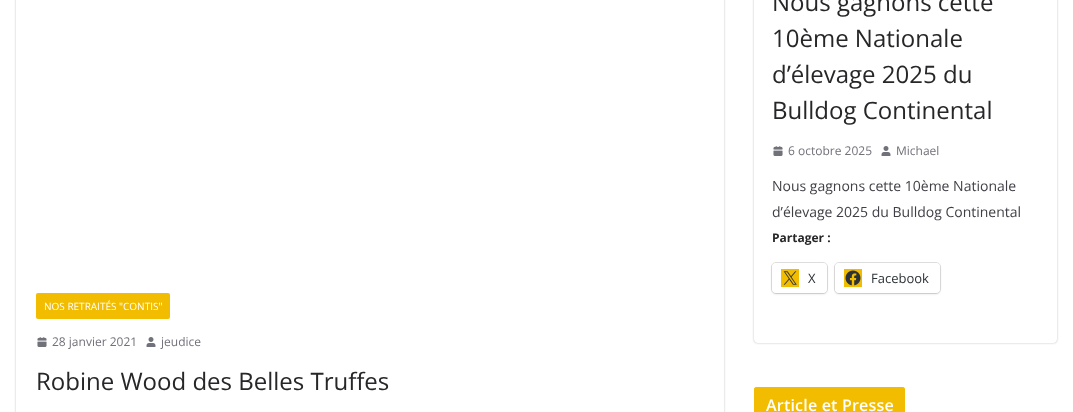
<svg xmlns="http://www.w3.org/2000/svg" width="1073" height="412" viewBox="0 0 1073 412">
  <defs>
    <clipPath id="clip1"><path d="M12 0H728V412H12ZM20-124H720C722-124 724-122 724-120V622C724 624 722 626 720 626H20C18 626 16 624 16 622V-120C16-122 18-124 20-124Z" clip-rule="evenodd"/></clipPath>
    <clipPath id="clip2"><path d="M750 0H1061V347H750ZM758-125H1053C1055-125 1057-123 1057-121V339C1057 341 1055 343 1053 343H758C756 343 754 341 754 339V-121C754-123 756-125 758-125Z" clip-rule="evenodd"/></clipPath>
  </defs>
  <rect width="100%" height="100%" fill="rgb(255,255,255)"/>
  <g clip-path="url(#clip1)">
    <rect x="16" y="-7" width="708" height="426" rx="4" fill="rgba(0,0,0,0.24)" filter="blur(1px)"/>
  </g>
  <rect x="36" y="293" width="134" height="26" rx="2" fill="rgb(242,189,0)"/>
  <text x="44" y="310" font-family="Open Sans" font-size="10" fill="rgb(255,255,255)">NOS RETRAITÉS "CONTIS"</text>
  <image x="37" y="337" width="10" height="10" href="pic1.png"/>
  <text x="52" y="346" font-family="Open Sans" font-size="12" fill="rgb(113,113,122)">28 janvier 2021</text>
  <image x="146" y="337" width="10" height="10" href="pic2.png"/>
  <text x="161" y="346" font-family="Open Sans" font-size="12" fill="rgb(113,113,122)">jeudice</text>
  <text x="36" y="390" font-family="Open Sans" font-size="24" fill="rgb(39,39,42)">Robine Wood des Belles Truffes</text>
  <g clip-path="url(#clip2)">
    <rect x="754" y="-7" width="303" height="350" rx="4" fill="rgba(0,0,0,0.24)" filter="blur(1px)"/>
  </g>
  <g font-family="Open Sans" font-size="24" fill="rgb(39,39,42)">
    <text>
      <tspan x="772" y="11">Nous gagnons cette</tspan>
      <tspan x="772" y="47">10ème Nationale</tspan>
      <tspan x="772" y="83">d’élevage 2025 du</tspan>
      <tspan x="772" y="119">Bulldog Continental</tspan>
    </text>
  </g>
  <image x="773" y="146" width="10" height="10" href="pic1.png"/>
  <text x="788" y="155" font-family="Open Sans" font-size="12" fill="rgb(113,113,122)">6 octobre 2025</text>
  <image x="881" y="146" width="10" height="10" href="pic2.png"/>
  <text x="896" y="155" font-family="Open Sans" font-size="12" fill="rgb(113,113,122)">Michael</text>
  <g font-family="Open Sans" font-size="14" fill="rgb(63,63,70)">
    <text>
      <tspan x="772" y="191">Nous gagnons cette 10ème Nationale</tspan>
      <tspan x="772" y="217">d’élevage 2025 du Bulldog Continental</tspan>
    </text>
  </g>
  <text x="772" y="242" font-family="Open Sans" font-size="12" font-weight="bold" fill="rgb(39,39,42)">Partager :</text>
  <rect x="771.5" y="262.5" width="56" height="31" rx="4.5" fill="none" stroke="rgb(224,224,224)"/>
  <rect x="772" y="264" width="55" height="30" rx="4" fill="rgba(0,0,0,0.12)" filter="blur(1px)"/>
  <rect x="772" y="263" width="55" height="30" rx="4" fill="rgb(255,255,255)"/>
  <rect x="781" y="269" width="18" height="18" fill="rgb(242,189,0)"/>
  <image x="783" y="271" width="14" height="14" href="pic3.png"/>
  <text x="808" y="283" font-family="Open Sans" font-size="13" fill="rgb(44,51,56)">X</text>
  <rect x="834.5" y="262.5" width="106" height="31" rx="4.5" fill="none" stroke="rgb(224,224,224)"/>
  <rect x="835" y="264" width="105" height="30" rx="4" fill="rgba(0,0,0,0.12)" filter="blur(1px)"/>
  <rect x="835" y="263" width="105" height="30" rx="4" fill="rgb(255,255,255)"/>
  <rect x="844" y="269" width="18" height="18" fill="rgb(242,189,0)"/>
  <image x="845" y="270" width="16" height="16" href="pic4.png"/>
  <text x="871" y="283" font-family="Open Sans" font-size="13" fill="rgb(44,51,56)">Facebook</text>
  <path d="M756 387H903C904 387 905 388 905 389V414H754V389C754 388 755 387 756 387Z" fill="rgb(242,189,0)"/>
  <text x="766" y="411" font-family="Open Sans" font-size="16" font-weight="600" letter-spacing="0.2" fill="rgb(255,255,255)">Article et Presse</text>
</svg>
